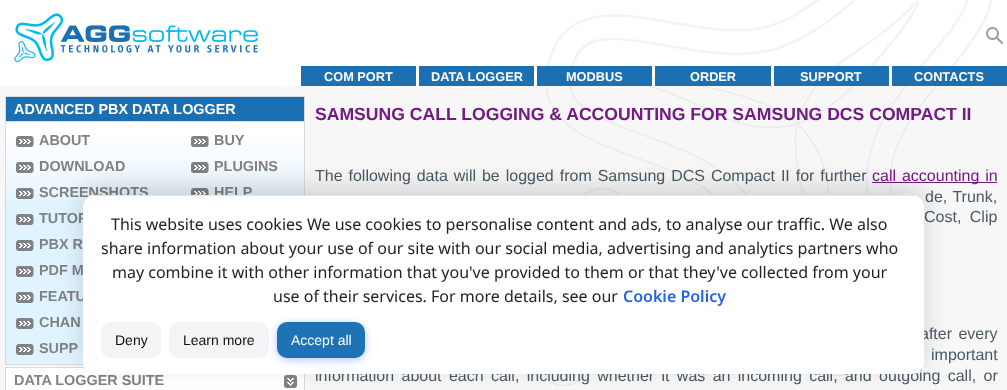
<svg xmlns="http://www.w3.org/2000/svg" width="1007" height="390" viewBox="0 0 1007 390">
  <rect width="100%" height="100%" fill="rgb(255,255,255)"/>
  <image x="547" y="0" width="445" height="80" href="pic2.png"/>
  <image x="986" y="27" width="18" height="18" href="pic1.png"/>
  <image x="14" y="13" width="244" height="50" href="pic3.png"/>
  <rect x="301" y="66" width="115" height="20" fill="rgb(28,112,177)"/>
  <text x="324" y="81" font-family="Liberation Sans" font-size="12.75" font-weight="bold" fill="rgb(255,255,255)">COM PORT</text>
  <rect x="419" y="66" width="115" height="20" fill="rgb(28,112,177)"/>
  <text x="431" y="81" font-family="Liberation Sans" font-size="12.75" font-weight="bold" fill="rgb(255,255,255)">DATA LOGGER</text>
  <rect x="537" y="66" width="115" height="20" fill="rgb(28,112,177)"/>
  <text x="566" y="81" font-family="Liberation Sans" font-size="12.75" font-weight="bold" fill="rgb(255,255,255)">MODBUS</text>
  <rect x="655" y="66" width="116" height="20" fill="rgb(28,112,177)"/>
  <text x="690" y="81" font-family="Liberation Sans" font-size="12.75" font-weight="bold" fill="rgb(255,255,255)">ORDER</text>
  <rect x="774" y="66" width="115" height="20" fill="rgb(28,112,177)"/>
  <text x="800" y="81" font-family="Liberation Sans" font-size="12.75" font-weight="bold" fill="rgb(255,255,255)">SUPPORT</text>
  <rect x="892" y="66" width="115" height="20" fill="rgb(28,112,177)"/>
  <text x="914" y="81" font-family="Liberation Sans" font-size="12.75" font-weight="bold" fill="rgb(255,255,255)">CONTACTS</text>
  <rect x="0" y="86" width="1007" height="304" fill="rgb(247,247,247)"/>
  <rect x="5.5" y="96.5" width="299" height="27" fill="none" stroke="rgb(217,217,217)"/>
  <rect x="6" y="97" width="298" height="24" fill="rgb(28,112,177)"/>
  <text x="14" y="114" font-family="Liberation Sans" font-size="14.4" font-weight="bold" fill="rgb(255,255,255)">ADVANCED PBX DATA LOGGER</text>
  <rect x="6" y="201" width="79" height="163" fill="rgb(224,244,255)"/>
  <image x="6" y="122" width="298" height="79" href="pic4.png"/>
  <rect x="5.5" y="121.5" width="299" height="243" fill="none" stroke="rgb(217,217,217)"/>
  <image x="16" y="136" width="18" height="11" href="pic5.png"/>
  <text x="39" y="145" font-family="Liberation Sans" font-size="14.4" font-weight="bold" fill="rgb(128,130,133)">ABOUT</text>
  <image x="16" y="162" width="18" height="11" href="pic6.png"/>
  <text x="39" y="171" font-family="Liberation Sans" font-size="14.4" font-weight="bold" fill="rgb(128,130,133)">DOWNLOAD</text>
  <image x="16" y="188" width="18" height="11" href="pic7.png"/>
  <text x="39" y="197" font-family="Liberation Sans" font-size="14.4" font-weight="bold" fill="rgb(128,130,133)">SCREENSHOTS</text>
  <image x="16" y="214" width="18" height="11" href="pic8.png"/>
  <text x="39" y="223" font-family="Liberation Sans" font-size="14.4" font-weight="bold" fill="rgb(128,130,133)">TUTOR</text>
  <image x="16" y="240" width="18" height="11" href="pic8.png"/>
  <text x="39" y="249" font-family="Liberation Sans" font-size="14.4" font-weight="bold" fill="rgb(128,130,133)">PBX R</text>
  <image x="16" y="266" width="18" height="11" href="pic8.png"/>
  <text x="39" y="275" font-family="Liberation Sans" font-size="14.4" font-weight="bold" fill="rgb(128,130,133)">PDF M</text>
  <image x="16" y="292" width="18" height="11" href="pic8.png"/>
  <text x="39" y="301" font-family="Liberation Sans" font-size="14.4" font-weight="bold" fill="rgb(128,130,133)">FEATU</text>
  <image x="16" y="318" width="18" height="11" href="pic8.png"/>
  <text x="39" y="327" font-family="Liberation Sans" font-size="14.4" font-weight="bold" fill="rgb(128,130,133)">CHAN</text>
  <image x="16" y="344" width="18" height="11" href="pic8.png"/>
  <text x="39" y="353" font-family="Liberation Sans" font-size="14.4" font-weight="bold" fill="rgb(128,130,133)">SUPP</text>
  <image x="191" y="136" width="18" height="11" href="pic5.png"/>
  <text x="214" y="145" font-family="Liberation Sans" font-size="14.4" font-weight="bold" fill="rgb(128,130,133)">BUY</text>
  <image x="191" y="162" width="18" height="11" href="pic6.png"/>
  <text x="214" y="171" font-family="Liberation Sans" font-size="14.4" font-weight="bold" fill="rgb(128,130,133)">PLUGINS</text>
  <image x="191" y="188" width="18" height="7" href="pic9.png"/>
  <text x="214" y="197" font-family="Liberation Sans" font-size="14.4" font-weight="bold" fill="rgb(128,130,133)">HELP</text>
  <rect x="5.5" y="367.5" width="299" height="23" fill="none" stroke="rgb(217,217,217)"/>
  <rect x="6" y="368" width="298" height="22" fill="rgb(255,255,255)"/>
  <image x="284" y="375" width="13" height="13" href="pic10.png"/>
  <text x="14" y="385" font-family="Liberation Sans" font-size="14.4" font-weight="bold" fill="rgb(128,130,133)">DATA LOGGER SUITE</text>
  <image x="541" y="86" width="396" height="301" href="pic11.png"/>
  <text x="315" y="120" font-family="Liberation Sans" font-size="17.6" font-weight="bold" fill="rgb(117,25,133)">SAMSUNG CALL LOGGING &amp; ACCOUNTING FOR SAMSUNG DCS COMPACT II</text>
  <text x="315" y="181" word-spacing="1.5" font-family="Liberation Sans" font-size="16" fill="rgb(73,90,101)">The following data will be logged from Samsung DCS Compact II for further</text>
  <rect x="872" y="182" width="125" height="1" fill="rgb(117,25,133)"/>
  <text x="872" y="181" word-spacing="1.5" font-family="Liberation Sans" font-size="16" fill="rgb(117,25,133)">call accounting in</text>
  <g font-family="Liberation Sans" font-size="16" fill="rgb(73,90,101)">
    <text x="925" y="202" word-spacing="1">de, Trunk,</text>
    <text x="924" y="222" word-spacing="4">Cost, Clip</text>
    <text x="920" y="339" word-spacing="2">after every</text>
    <text x="931" y="360" word-spacing="4">important</text>
    <text x="315" y="381" word-spacing="2.9">information about each call, including whether it was an incoming call, and outgoing call, or</text>
  </g>
  <rect x="83" y="187" width="841" height="179" rx="12" fill="rgba(0,0,0,0.15)" filter="blur(12px)"/>
  <rect x="83" y="195" width="841" height="179" rx="12" fill="rgb(255,255,255)"/>
  <rect x="89" y="195" width="829" height="1" fill="rgb(229,231,235)"/>
  <g font-family="Noto Sans" font-size="16" fill="rgb(34,34,34)">
    <text x="111" y="230">This website uses cookies We use cookies to personalise content and ads, to analyse our traffic. We also</text>
    <text x="101" y="254">share information about your use of our site with our social media, advertising and analytics partners who</text>
    <text x="112" y="278">may combine it with other information that you've provided to them or that they've collected from your</text>
    <text x="273" y="302">use of their services. For more details, see our</text>
  </g>
  <text x="623" y="302" font-family="Noto Sans" font-size="16" font-weight="600" fill="rgb(37,99,235)">Cookie Policy</text>
  <rect x="101" y="322" width="60" height="36" rx="10" fill="rgb(243,244,246)"/>
  <text x="115" y="345" font-family="Liberation Sans" font-size="14" fill="rgb(17,17,17)">Deny</text>
  <rect x="169" y="322" width="100" height="36" rx="10" fill="rgb(243,244,246)"/>
  <text x="183" y="345" font-family="Liberation Sans" font-size="14" fill="rgb(17,17,17)">Learn more</text>
  <rect x="277" y="324" width="88" height="36" rx="10" fill="rgba(37,99,235,0.35)" filter="blur(4px)"/>
  <rect x="277" y="322" width="88" height="36" rx="10" fill="rgb(31,115,180)"/>
  <text x="291" y="345" font-family="Liberation Sans" font-size="14" fill="rgb(255,255,255)">Accept all</text>
</svg>
